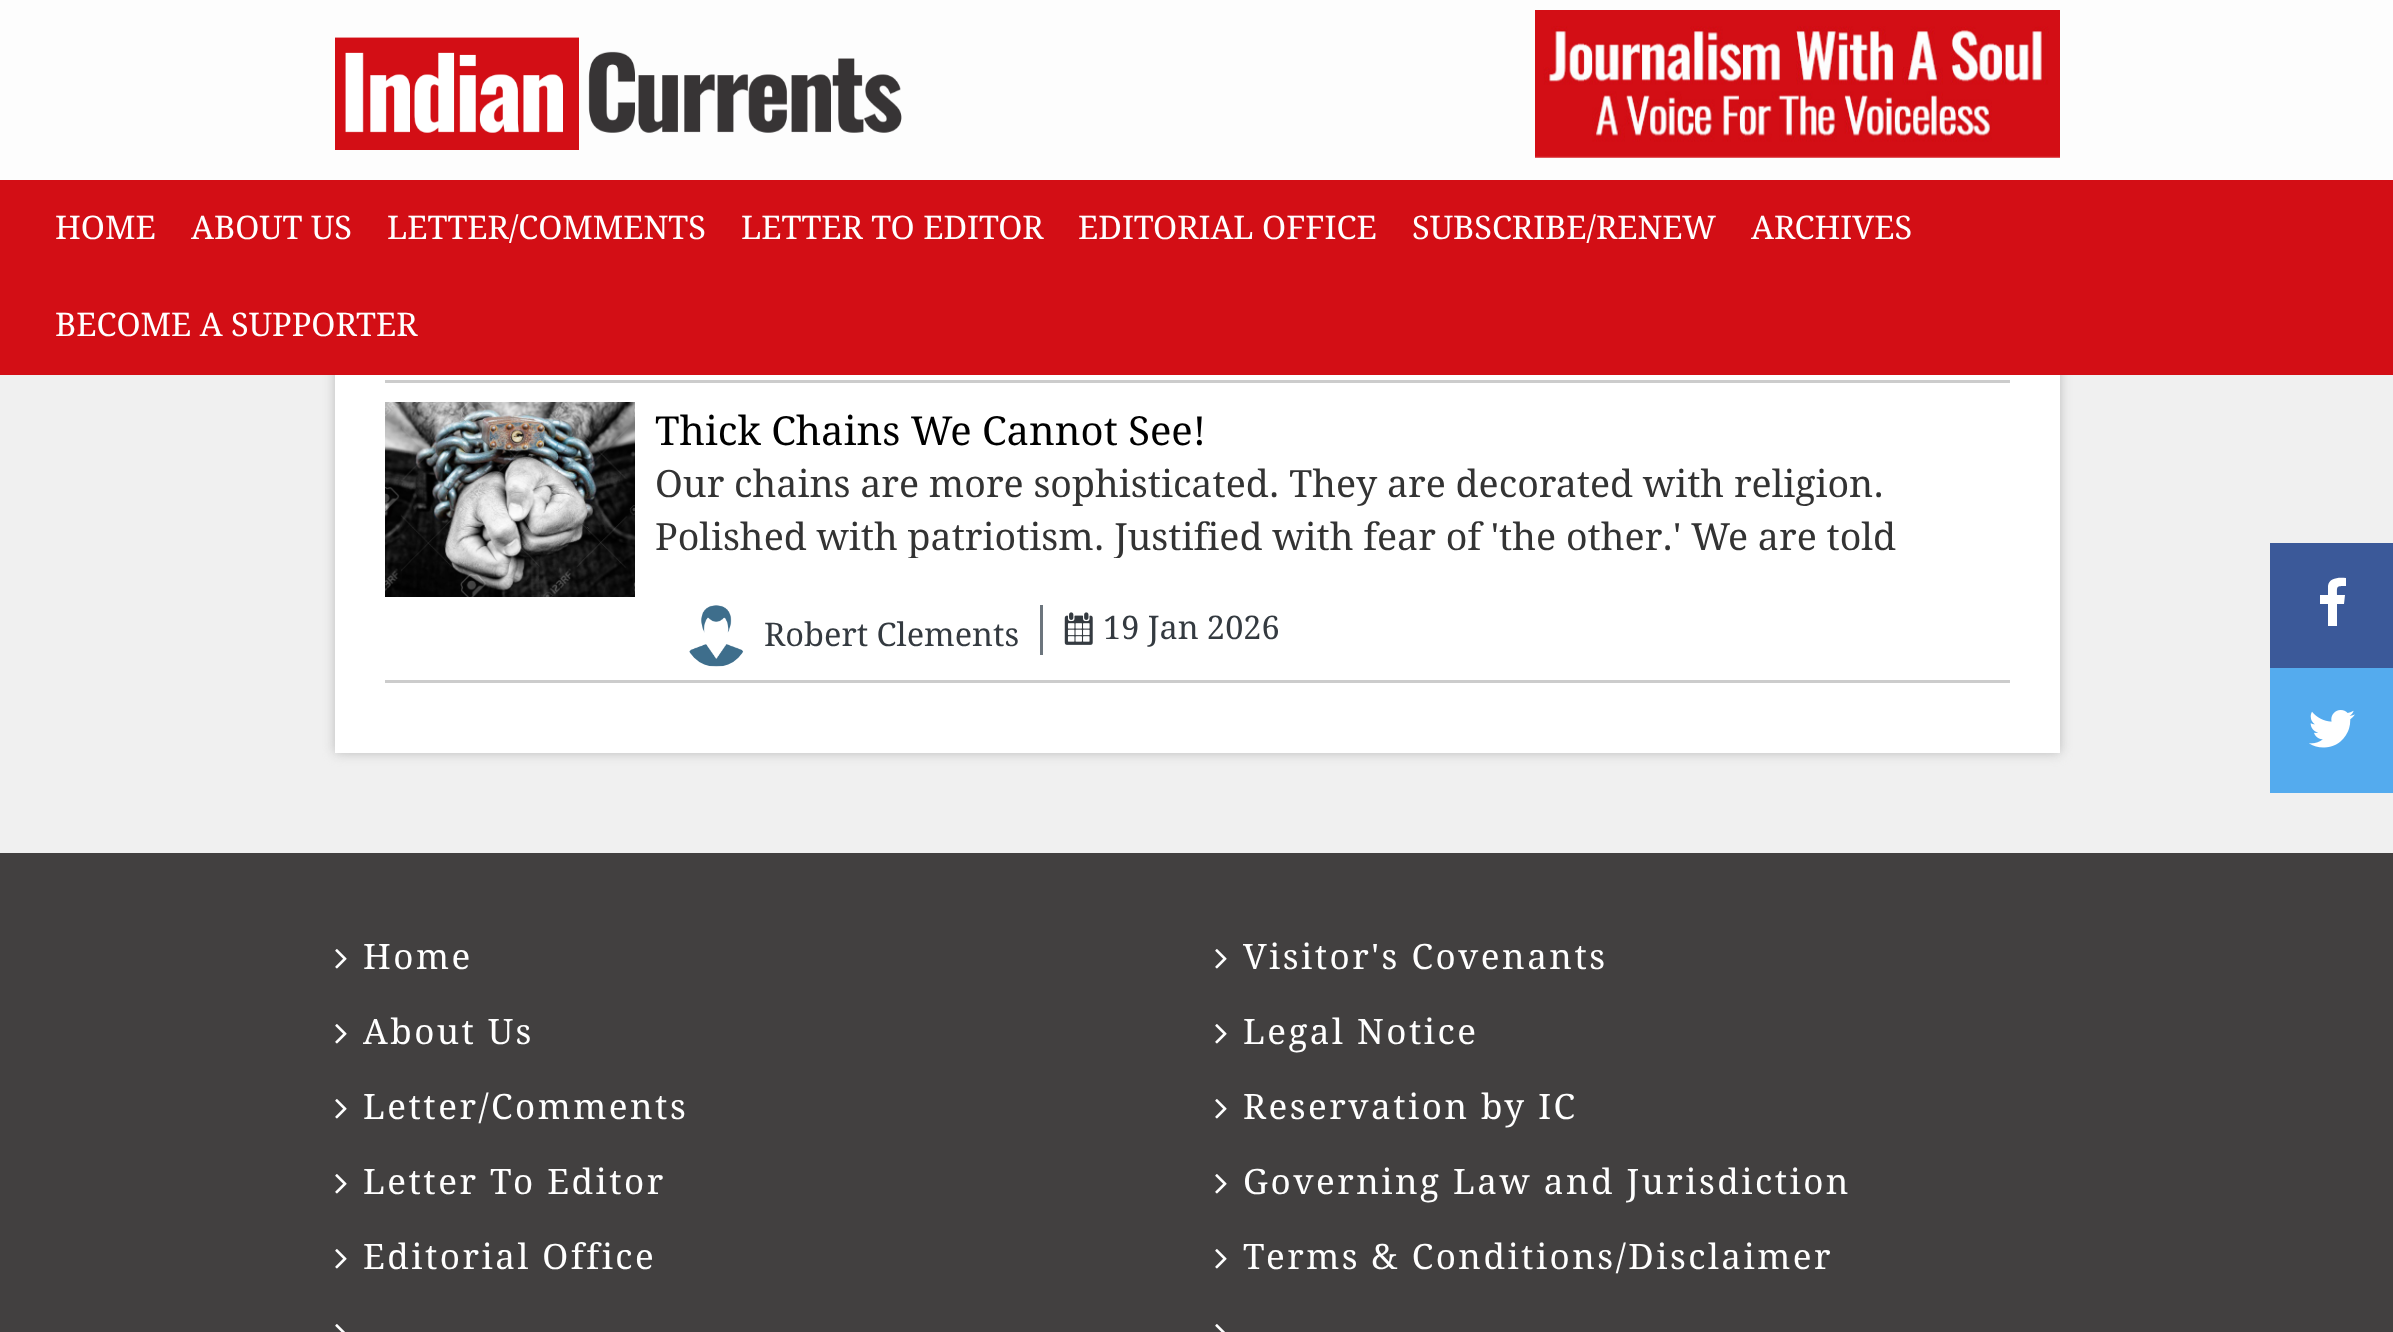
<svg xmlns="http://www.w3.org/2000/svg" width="2393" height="1332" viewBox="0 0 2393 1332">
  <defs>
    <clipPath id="clip1"><rect x="655" y="460" width="1355" height="98"/></clipPath>
  </defs>
  <rect width="100%" height="100%" fill="rgb(240,240,240)"/>
  <rect x="335" y="-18" width="1725" height="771" fill="rgb(187,187,187)" filter="blur(6px)"/>
  <rect x="0" y="0" width="2393" height="180" fill="rgb(253,253,253)"/>
  <image x="335" y="37" width="567" height="113" href="pic1.png"/>
  <image x="1535" y="10" width="525" height="148" href="pic2.png"/>
  <rect x="0" y="180" width="2393" height="195" fill="rgb(211,14,21)"/>
  <g font-family="Droid Serif" font-size="32.5" fill="rgb(255,255,255)">
    <text x="55" y="239">HOME</text>
    <text x="191" y="239">ABOUT US</text>
    <text x="387" y="239">LETTER/COMMENTS</text>
    <text x="741" y="239">LETTER TO EDITOR</text>
    <text x="1078" y="239">EDITORIAL OFFICE</text>
    <text x="1412" y="239">SUBSCRIBE/RENEW</text>
    <text x="1751" y="239">ARCHIVES</text>
    <text x="55" y="336">BECOME A SUPPORTER</text>
  </g>
  <rect x="335" y="375" width="1725" height="378" fill="rgb(255,255,255)"/>
  <rect x="385" y="380" width="1625" height="3" fill="rgb(204,204,204)"/>
  <rect x="385" y="680" width="1625" height="3" fill="rgb(204,204,204)"/>
  <image x="385" y="402" width="250" height="195" href="pic3.png"/>
  <text x="655" y="445" font-family="Droid Serif" font-size="40" fill="rgb(0,0,0)">Thick Chains We Cannot See!</text>
  <text x="655" y="497" font-family="Droid Serif" font-size="37.5" fill="rgb(51,51,51)">Our chains are more sophisticated. They are decorated with religion.</text>
  <g clip-path="url(#clip1)">
    <text x="655" y="550" font-family="Droid Serif" font-size="37.5" fill="rgb(51,51,51)">Polished with patriotism. Justified with fear of 'the other.' We are told</text>
  </g>
  <image x="689" y="605" width="55" height="62" href="pic4.png"/>
  <text x="764" y="646" font-family="Droid Serif" font-size="32.5" fill="rgb(52,58,64)">Robert Clements</text>
  <rect x="1040" y="605" width="3" height="50" fill="rgb(108,117,125)"/>
  <image x="1064" y="612" width="29" height="33" href="pic5.png"/>
  <text x="1103" y="639" font-family="Droid Serif" font-size="32.5" fill="rgb(52,58,64)">19 Jan 2026</text>
  <rect x="2270" y="543" width="123" height="125" fill="rgb(59,89,153)"/>
  <path d="M2346 578V586C2336 586 2337 586 2337 595H2345L2344 604H2337V626H2328V604H2320V595H2328V586C2329 578 2338 577 2346 578Z" fill="rgb(255,255,255)"/>
  <rect x="2270" y="668" width="123" height="125" fill="rgb(84,171,238)"/>
  <image x="2309" y="710" width="46" height="38" href="pic6.png"/>
  <rect x="0" y="853" width="2393" height="479" fill="rgb(66,64,64)"/>
  <image x="335" y="949" width="12" height="20" href="pic7.png"/>
  <text x="363" y="969" font-family="Droid Serif" font-size="35" letter-spacing="2.5" fill="rgb(255,255,255)">Home</text>
  <image x="1215" y="949" width="12" height="20" href="pic7.png"/>
  <text x="1243" y="969" font-family="Droid Serif" font-size="35" letter-spacing="2.5" fill="rgb(255,255,255)">Visitor's Covenants</text>
  <image x="335" y="1024" width="12" height="20" href="pic7.png"/>
  <text x="363" y="1044" font-family="Droid Serif" font-size="35" letter-spacing="2.5" fill="rgb(255,255,255)">About Us</text>
  <image x="1215" y="1024" width="12" height="20" href="pic7.png"/>
  <text x="1243" y="1044" font-family="Droid Serif" font-size="35" letter-spacing="2.5" fill="rgb(255,255,255)">Legal Notice</text>
  <image x="335" y="1099" width="12" height="20" href="pic7.png"/>
  <text x="363" y="1119" font-family="Droid Serif" font-size="35" letter-spacing="2.5" fill="rgb(255,255,255)">Letter/Comments</text>
  <image x="1215" y="1099" width="12" height="20" href="pic7.png"/>
  <text x="1243" y="1119" font-family="Droid Serif" font-size="35" letter-spacing="2.5" fill="rgb(255,255,255)">Reservation by IC</text>
  <image x="335" y="1174" width="12" height="20" href="pic7.png"/>
  <text x="363" y="1194" font-family="Droid Serif" font-size="35" letter-spacing="2.5" fill="rgb(255,255,255)">Letter To Editor</text>
  <image x="1215" y="1174" width="12" height="20" href="pic7.png"/>
  <text x="1243" y="1194" font-family="Droid Serif" font-size="35" letter-spacing="2.5" fill="rgb(255,255,255)">Governing Law and Jurisdiction</text>
  <image x="335" y="1249" width="12" height="20" href="pic7.png"/>
  <text x="363" y="1269" font-family="Droid Serif" font-size="35" letter-spacing="2.5" fill="rgb(255,255,255)">Editorial Office</text>
  <image x="1215" y="1249" width="12" height="20" href="pic7.png"/>
  <text x="1243" y="1269" font-family="Droid Serif" font-size="35" letter-spacing="2.5" fill="rgb(255,255,255)">Terms &amp; Conditions/Disclaimer</text>
  <image x="335" y="1324" width="10" height="8" href="pic8.png"/>
  <image x="1215" y="1324" width="10" height="8" href="pic8.png"/>
</svg>
